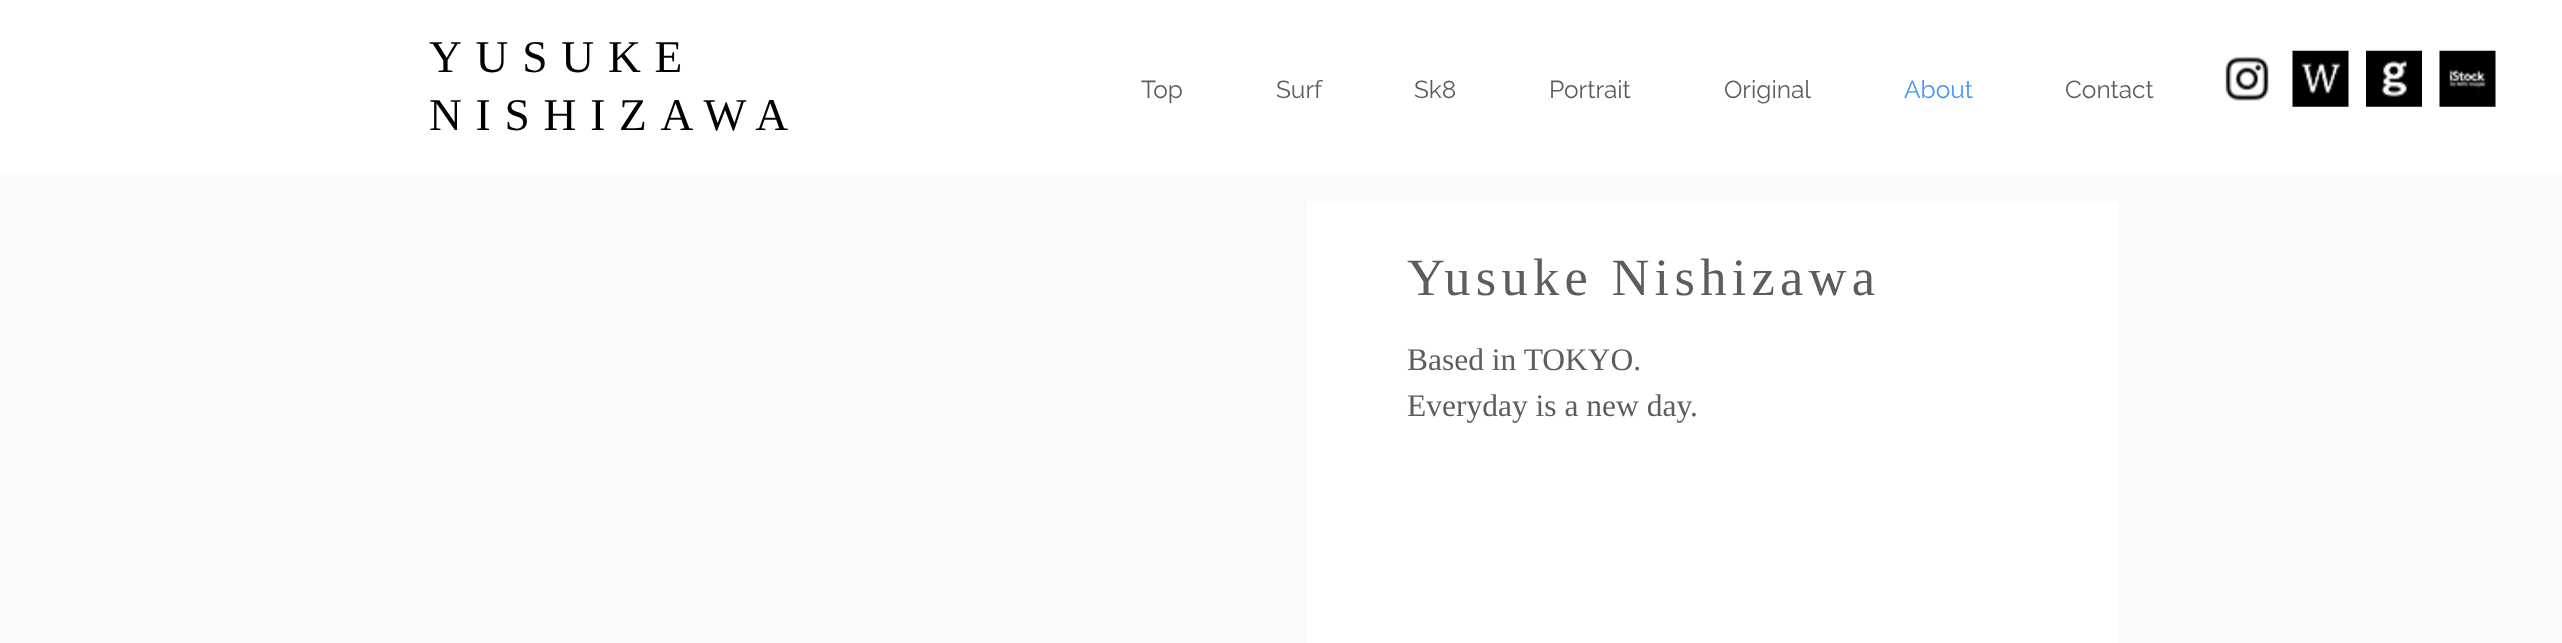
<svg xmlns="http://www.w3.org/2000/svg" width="2562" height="643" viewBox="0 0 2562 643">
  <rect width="100%" height="100%" fill="rgb(255,255,255)"/>
  <g font-family="Liberation Serif" font-size="45.5" letter-spacing="13.75" fill="rgb(0,0,0)">
    <text>
      <tspan x="429" y="72">YUSUKE</tspan>
      <tspan x="429" y="130">NISHIZAWA</tspan>
    </text>
  </g>
  <g font-family="Raleway" font-size="24.5" fill="rgb(94,93,93)">
    <text x="1141" y="98">Top</text>
    <text x="1276" y="98">Surf</text>
    <text x="1414" y="98">Sk8</text>
    <text x="1549" y="98">Portrait</text>
    <text x="1724" y="98">Original</text>
  </g>
  <text x="1904" y="98" font-family="Raleway" font-size="24.5" fill="rgb(69,149,247)">About</text>
  <text x="2065" y="98" font-family="Raleway" font-size="24.5" fill="rgb(94,93,93)">Contact</text>
  <image x="2225" y="56" width="44" height="45" href="pic1.png"/>
  <image x="2292" y="50" width="57" height="57" href="pic2.png"/>
  <image x="2366" y="50" width="56" height="57" href="pic3.png"/>
  <image x="2439" y="50" width="57" height="57" href="pic4.png"/>
  <rect x="0" y="173" width="2562" height="470" fill="rgb(250,250,250)"/>
  <rect x="1307" y="201" width="812" height="442" fill="rgb(255,255,255)"/>
  <text x="1407" y="295" font-family="Liberation Serif" font-size="52.5" letter-spacing="5.25" fill="rgb(94,93,93)">Yusuke Nishizawa</text>
  <g font-family="Liberation Serif" font-size="31.5" fill="rgb(94,93,93)">
    <text>
      <tspan x="1407" y="370">Based in TOKYO.</tspan>
      <tspan x="1407" y="416">Everyday is a new day.</tspan>
    </text>
  </g>
</svg>
